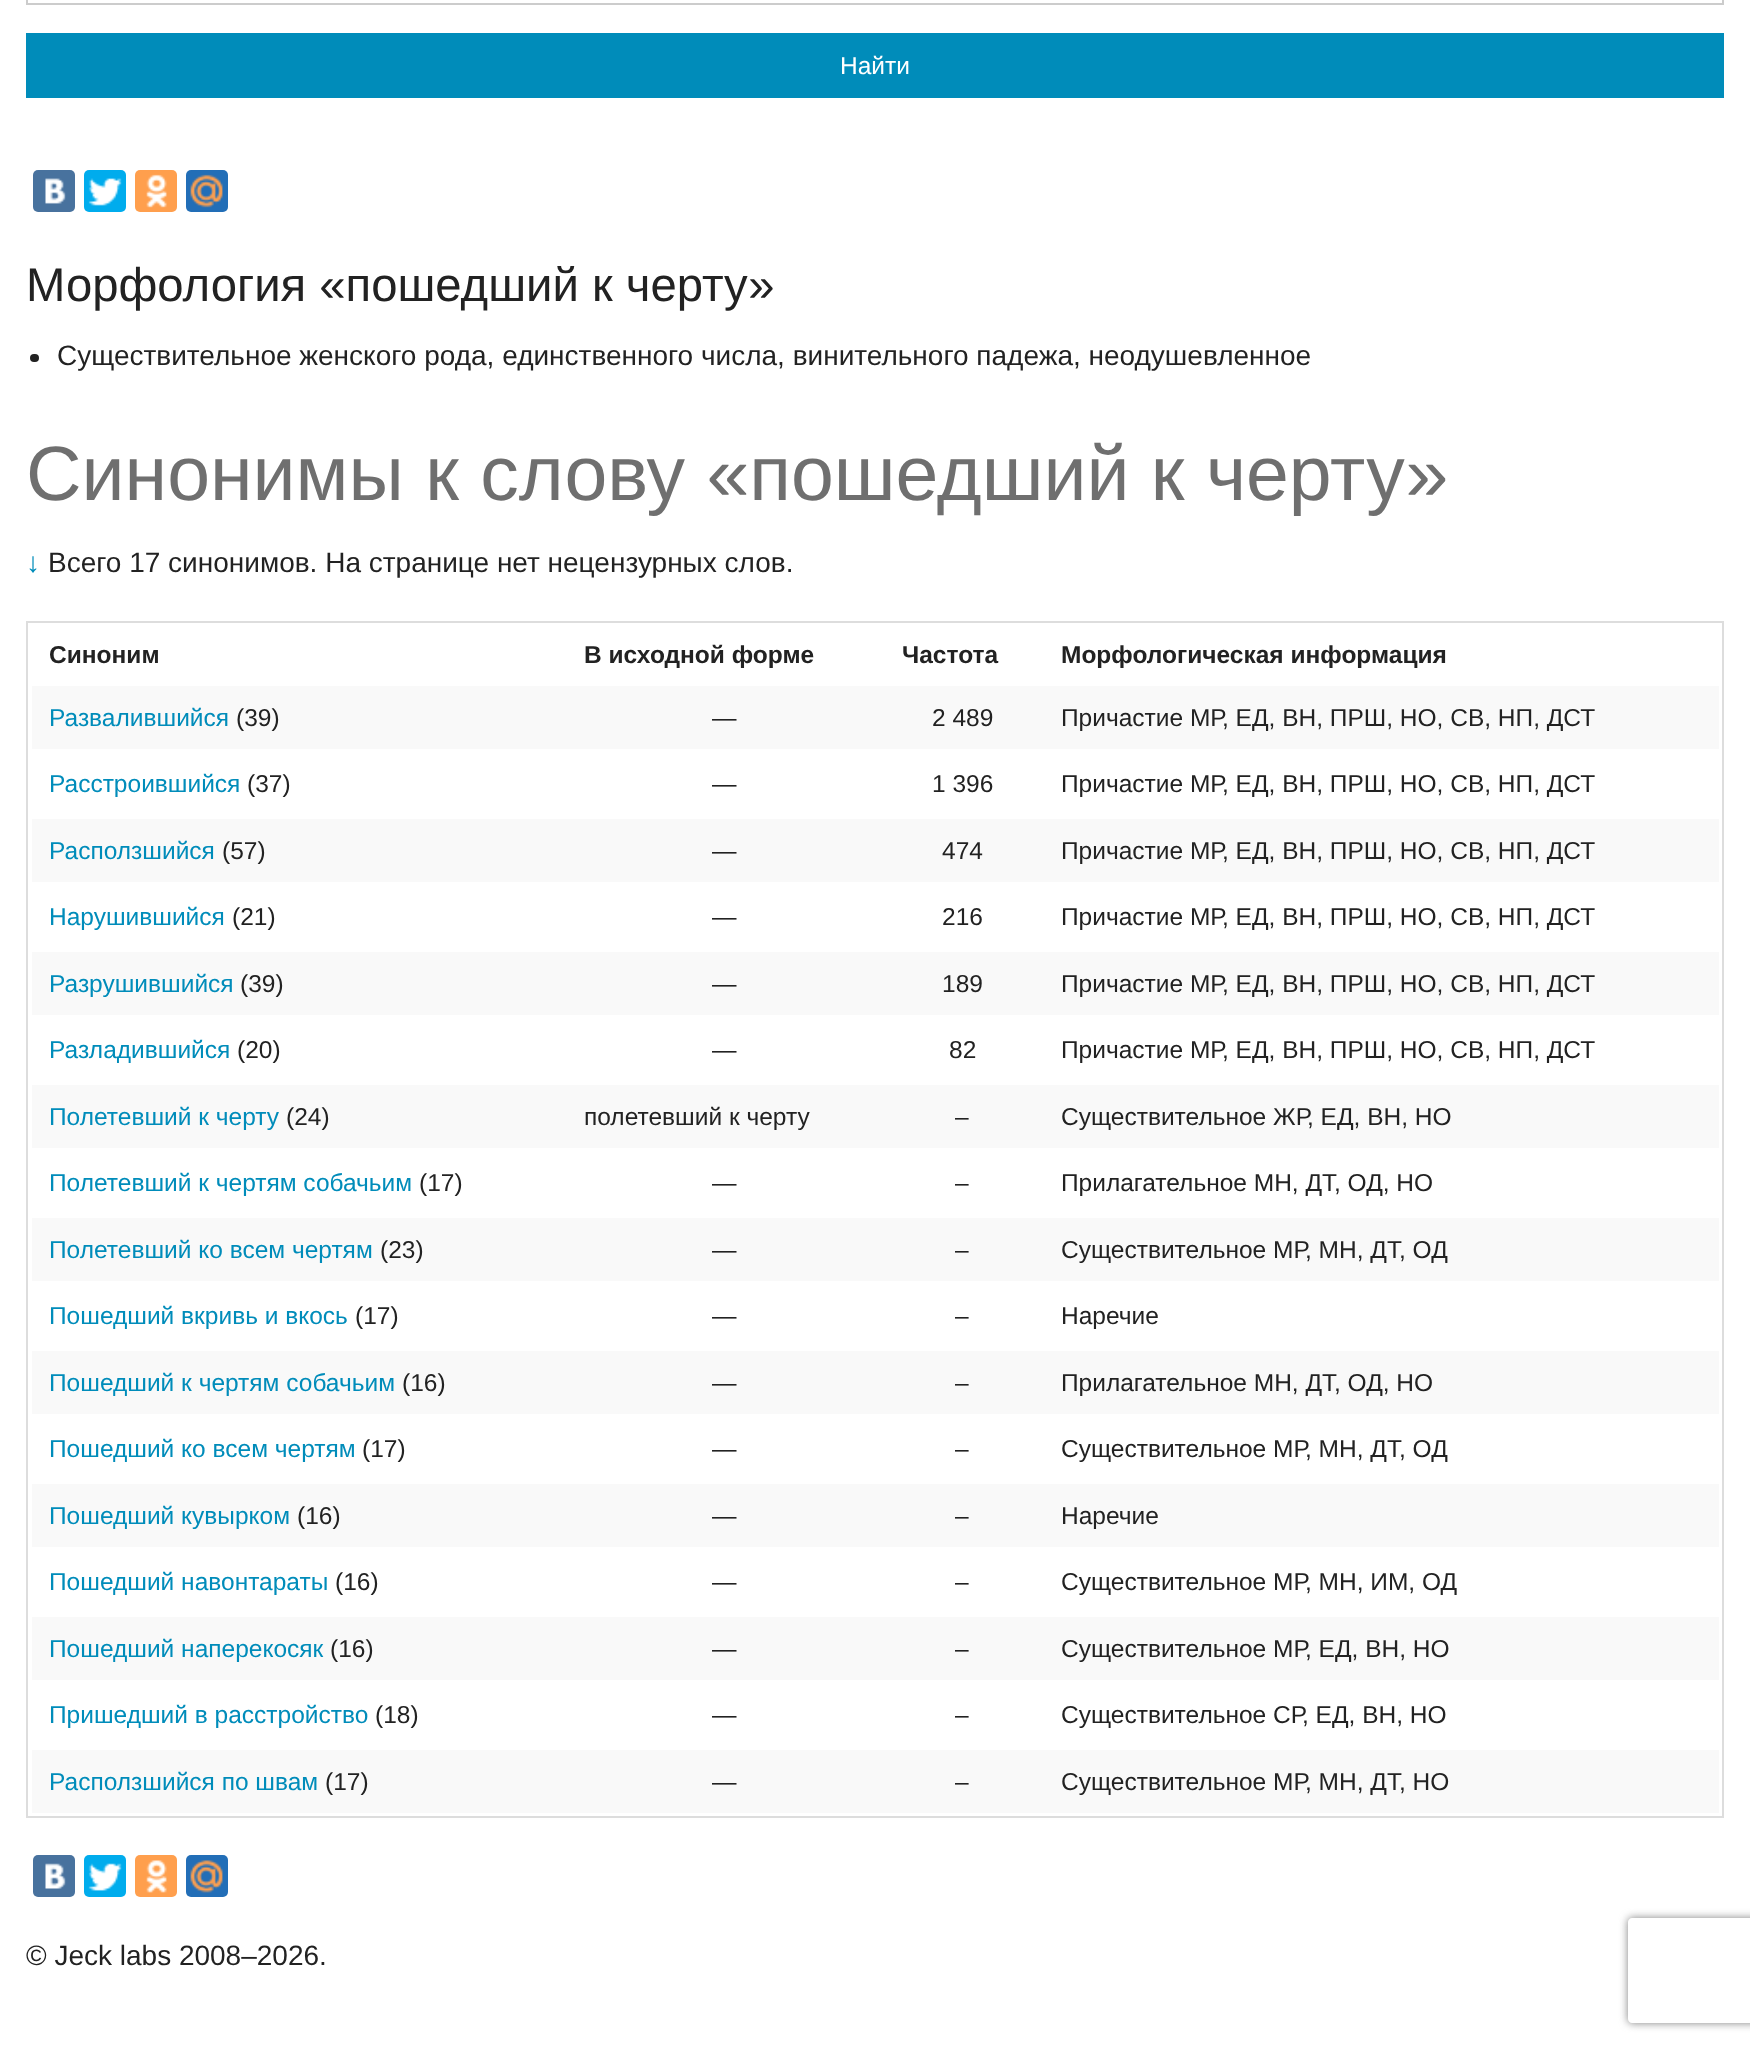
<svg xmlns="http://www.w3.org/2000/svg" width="1750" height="2047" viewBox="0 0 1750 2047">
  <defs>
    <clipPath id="clip1"><path d="M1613 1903H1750V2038H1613ZM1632 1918H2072C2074 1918 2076 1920 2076 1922V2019C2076 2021 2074 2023 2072 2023H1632C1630 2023 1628 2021 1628 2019V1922C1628 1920 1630 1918 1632 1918Z" clip-rule="evenodd"/></clipPath>
  </defs>
  <rect width="100%" height="100%" fill="rgb(255,255,255)"/>
  <rect x="27" y="-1" width="1696" height="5" fill="none" stroke="rgb(204,204,204)" stroke-width="2"/>
  <rect x="26" y="33" width="1698" height="65" fill="rgb(0,140,186)"/>
  <text x="840" y="74" font-family="Liberation Sans" font-size="24.5" fill="rgb(255,255,255)">Найти</text>
  <rect x="33" y="170" width="42" height="42" rx="5" fill="rgb(72,114,158)"/>
  <image x="45" y="178" width="21" height="26" href="pic1.png"/>
  <rect x="84" y="170" width="42" height="42" rx="5" fill="rgb(0,172,237)"/>
  <image x="88" y="178" width="34" height="28" href="pic2.png"/>
  <rect x="135" y="170" width="42" height="42" rx="5" fill="rgb(255,159,77)"/>
  <image x="146" y="174" width="21" height="34" href="pic3.png"/>
  <rect x="186" y="170" width="42" height="42" rx="5" fill="rgb(34,110,183)"/>
  <image x="190" y="174" width="33" height="34" href="pic4.png"/>
  <text x="26" y="301" font-family="Liberation Sans" font-size="47.25" fill="rgb(34,34,34)">Морфология «пошедший к черту»</text>
  <rect x="30" y="354" width="9" height="8" rx="4" fill="rgb(34,34,34)"/>
  <text x="57" y="365" font-family="Liberation Sans" font-size="28" fill="rgb(34,34,34)">Существительное женского рода, единственного числа, винительного падежа, неодушевленное</text>
  <text x="26" y="500" font-family="Liberation Sans" font-size="77" fill="rgb(111,111,111)">Синонимы к слову «пошедший к черту»</text>
  <text x="26" y="572" font-family="Liberation Sans" font-size="28" fill="rgb(0,140,186)">↓</text>
  <text x="48" y="572" font-family="Liberation Sans" font-size="28" fill="rgb(34,34,34)">Всего 17 синонимов. На странице нет нецензурных слов.</text>
  <rect x="27" y="622" width="1696" height="1195" fill="none" stroke="rgb(221,221,221)" stroke-width="2"/>
  <g font-family="Liberation Sans" font-size="24.5" font-weight="bold" fill="rgb(34,34,34)">
    <text x="49" y="663">Синоним</text>
    <text x="584" y="663">В исходной форме</text>
    <text x="902" y="663">Частота</text>
    <text x="1061" y="663">Морфологическая информация</text>
  </g>
  <rect x="32" y="686" width="1687" height="63" fill="rgb(249,249,249)"/>
  <text x="49" y="726" font-family="Liberation Sans" font-size="24.5" fill="rgb(0,140,186)">Развалившийся</text>
  <g font-family="Liberation Sans" font-size="24.5" fill="rgb(34,34,34)">
    <text x="236" y="726">(39)</text>
    <text x="712" y="726">—</text>
    <text x="932" y="726">2 489</text>
    <text x="1061" y="726">Причастие МР</text>
    <text x="1222" y="726">, ЕД, ВН, ПРШ, НО, СВ, НП, ДСТ</text>
  </g>
  <text x="49" y="792" font-family="Liberation Sans" font-size="24.5" fill="rgb(0,140,186)">Расстроившийся</text>
  <g font-family="Liberation Sans" font-size="24.5" fill="rgb(34,34,34)">
    <text x="247" y="792">(37)</text>
    <text x="712" y="792">—</text>
    <text x="932" y="792">1 396</text>
    <text x="1061" y="792">Причастие МР</text>
    <text x="1222" y="792">, ЕД, ВН, ПРШ, НО, СВ, НП, ДСТ</text>
  </g>
  <rect x="32" y="819" width="1687" height="63" fill="rgb(249,249,249)"/>
  <text x="49" y="859" font-family="Liberation Sans" font-size="24.5" fill="rgb(0,140,186)">Расползшийся</text>
  <g font-family="Liberation Sans" font-size="24.5" fill="rgb(34,34,34)">
    <text x="222" y="859">(57)</text>
    <text x="712" y="859">—</text>
    <text x="942" y="859">474</text>
    <text x="1061" y="859">Причастие МР</text>
    <text x="1222" y="859">, ЕД, ВН, ПРШ, НО, СВ, НП, ДСТ</text>
  </g>
  <text x="49" y="925" font-family="Liberation Sans" font-size="24.5" fill="rgb(0,140,186)">Нарушившийся</text>
  <g font-family="Liberation Sans" font-size="24.5" fill="rgb(34,34,34)">
    <text x="232" y="925">(21)</text>
    <text x="712" y="925">—</text>
    <text x="942" y="925">216</text>
    <text x="1061" y="925">Причастие МР</text>
    <text x="1222" y="925">, ЕД, ВН, ПРШ, НО, СВ, НП, ДСТ</text>
  </g>
  <rect x="32" y="952" width="1687" height="63" fill="rgb(249,249,249)"/>
  <text x="49" y="992" font-family="Liberation Sans" font-size="24.5" fill="rgb(0,140,186)">Разрушившийся</text>
  <g font-family="Liberation Sans" font-size="24.5" fill="rgb(34,34,34)">
    <text x="240" y="992">(39)</text>
    <text x="712" y="992">—</text>
    <text x="942" y="992">189</text>
    <text x="1061" y="992">Причастие МР</text>
    <text x="1222" y="992">, ЕД, ВН, ПРШ, НО, СВ, НП, ДСТ</text>
  </g>
  <text x="49" y="1058" font-family="Liberation Sans" font-size="24.5" fill="rgb(0,140,186)">Разладившийся</text>
  <g font-family="Liberation Sans" font-size="24.5" fill="rgb(34,34,34)">
    <text x="237" y="1058">(20)</text>
    <text x="712" y="1058">—</text>
    <text x="949" y="1058">82</text>
    <text x="1061" y="1058">Причастие МР</text>
    <text x="1222" y="1058">, ЕД, ВН, ПРШ, НО, СВ, НП, ДСТ</text>
  </g>
  <rect x="32" y="1085" width="1687" height="63" fill="rgb(249,249,249)"/>
  <text x="49" y="1125" font-family="Liberation Sans" font-size="24.5" fill="rgb(0,140,186)">Полетевший к черту</text>
  <g font-family="Liberation Sans" font-size="24.5" fill="rgb(34,34,34)">
    <text x="286" y="1125">(24)</text>
    <text x="584" y="1125">полетевший к черту</text>
    <text x="955" y="1125">–</text>
    <text x="1061" y="1125">Существительное ЖР</text>
    <text x="1307" y="1125">, ЕД, ВН, НО</text>
  </g>
  <text x="49" y="1191" font-family="Liberation Sans" font-size="24.5" fill="rgb(0,140,186)">Полетевший к чертям собачьим</text>
  <g font-family="Liberation Sans" font-size="24.5" fill="rgb(34,34,34)">
    <text x="419" y="1191">(17)</text>
    <text x="712" y="1191">—</text>
    <text x="955" y="1191">–</text>
    <text x="1061" y="1191">Прилагательное МН, ДТ</text>
    <text x="1334" y="1191">, ОД, НО</text>
  </g>
  <rect x="32" y="1218" width="1687" height="63" fill="rgb(249,249,249)"/>
  <text x="49" y="1258" font-family="Liberation Sans" font-size="24.5" fill="rgb(0,140,186)">Полетевший ко всем чертям</text>
  <g font-family="Liberation Sans" font-size="24.5" fill="rgb(34,34,34)">
    <text x="380" y="1258">(23)</text>
    <text x="712" y="1258">—</text>
    <text x="955" y="1258">–</text>
    <text x="1061" y="1258">Существительное МР</text>
    <text x="1305" y="1258">, МН, ДТ</text>
    <text x="1399" y="1258">, ОД</text>
  </g>
  <text x="49" y="1324" font-family="Liberation Sans" font-size="24.5" fill="rgb(0,140,186)">Пошедший вкривь и вкось</text>
  <g font-family="Liberation Sans" font-size="24.5" fill="rgb(34,34,34)">
    <text x="355" y="1324">(17)</text>
    <text x="712" y="1324">—</text>
    <text x="955" y="1324">–</text>
    <text x="1061" y="1324">Наречие</text>
  </g>
  <rect x="32" y="1351" width="1687" height="63" fill="rgb(249,249,249)"/>
  <text x="49" y="1391" font-family="Liberation Sans" font-size="24.5" fill="rgb(0,140,186)">Пошедший к чертям собачьим</text>
  <g font-family="Liberation Sans" font-size="24.5" fill="rgb(34,34,34)">
    <text x="402" y="1391">(16)</text>
    <text x="712" y="1391">—</text>
    <text x="955" y="1391">–</text>
    <text x="1061" y="1391">Прилагательное МН, ДТ</text>
    <text x="1334" y="1391">, ОД, НО</text>
  </g>
  <text x="49" y="1457" font-family="Liberation Sans" font-size="24.5" fill="rgb(0,140,186)">Пошедший ко всем чертям</text>
  <g font-family="Liberation Sans" font-size="24.5" fill="rgb(34,34,34)">
    <text x="362" y="1457">(17)</text>
    <text x="712" y="1457">—</text>
    <text x="955" y="1457">–</text>
    <text x="1061" y="1457">Существительное МР</text>
    <text x="1305" y="1457">, МН, ДТ</text>
    <text x="1399" y="1457">, ОД</text>
  </g>
  <rect x="32" y="1484" width="1687" height="63" fill="rgb(249,249,249)"/>
  <text x="49" y="1524" font-family="Liberation Sans" font-size="24.5" fill="rgb(0,140,186)">Пошедший кувырком</text>
  <g font-family="Liberation Sans" font-size="24.5" fill="rgb(34,34,34)">
    <text x="297" y="1524">(16)</text>
    <text x="712" y="1524">—</text>
    <text x="955" y="1524">–</text>
    <text x="1061" y="1524">Наречие</text>
  </g>
  <text x="49" y="1590" font-family="Liberation Sans" font-size="24.5" fill="rgb(0,140,186)">Пошедший навонтараты</text>
  <g font-family="Liberation Sans" font-size="24.5" fill="rgb(34,34,34)">
    <text x="335" y="1590">(16)</text>
    <text x="712" y="1590">—</text>
    <text x="955" y="1590">–</text>
    <text x="1061" y="1590">Существительное МР</text>
    <text x="1305" y="1590">, МН, ИМ, ОД</text>
  </g>
  <rect x="32" y="1617" width="1687" height="63" fill="rgb(249,249,249)"/>
  <text x="49" y="1657" font-family="Liberation Sans" font-size="24.5" fill="rgb(0,140,186)">Пошедший наперекосяк</text>
  <g font-family="Liberation Sans" font-size="24.5" fill="rgb(34,34,34)">
    <text x="330" y="1657">(16)</text>
    <text x="712" y="1657">—</text>
    <text x="955" y="1657">–</text>
    <text x="1061" y="1657">Существительное МР</text>
    <text x="1305" y="1657">, ЕД, ВН, НО</text>
  </g>
  <text x="49" y="1723" font-family="Liberation Sans" font-size="24.5" fill="rgb(0,140,186)">Пришедший в расстройство</text>
  <g font-family="Liberation Sans" font-size="24.5" fill="rgb(34,34,34)">
    <text x="375" y="1723">(18)</text>
    <text x="712" y="1723">—</text>
    <text x="955" y="1723">–</text>
    <text x="1061" y="1723">Существительное СР</text>
    <text x="1302" y="1723">, ЕД, ВН, НО</text>
  </g>
  <rect x="32" y="1750" width="1687" height="63" fill="rgb(249,249,249)"/>
  <text x="49" y="1790" font-family="Liberation Sans" font-size="24.5" fill="rgb(0,140,186)">Расползшийся по швам</text>
  <g font-family="Liberation Sans" font-size="24.5" fill="rgb(34,34,34)">
    <text x="325" y="1790">(17)</text>
    <text x="712" y="1790">—</text>
    <text x="955" y="1790">–</text>
    <text x="1061" y="1790">Существительное МР</text>
    <text x="1305" y="1790">, МН, ДТ</text>
    <text x="1399" y="1790">, НО</text>
  </g>
  <rect x="33" y="1855" width="42" height="42" rx="5" fill="rgb(72,114,158)"/>
  <image x="45" y="1863" width="21" height="26" href="pic5.png"/>
  <rect x="84" y="1855" width="42" height="42" rx="5" fill="rgb(0,172,237)"/>
  <image x="88" y="1863" width="34" height="28" href="pic6.png"/>
  <rect x="135" y="1855" width="42" height="42" rx="5" fill="rgb(255,159,77)"/>
  <image x="146" y="1860" width="21" height="33" href="pic7.png"/>
  <rect x="186" y="1855" width="42" height="42" rx="5" fill="rgb(34,110,183)"/>
  <image x="190" y="1860" width="33" height="33" href="pic8.png"/>
  <text x="26" y="1965" font-family="Liberation Sans" font-size="28" fill="rgb(34,34,34)">© Jeck labs 2008–2026.</text>
  <g clip-path="url(#clip1)">
    <rect x="1628" y="1918" width="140" height="105" rx="4" fill="rgb(128,128,128)" filter="blur(4.5px)"/>
  </g>
</svg>
